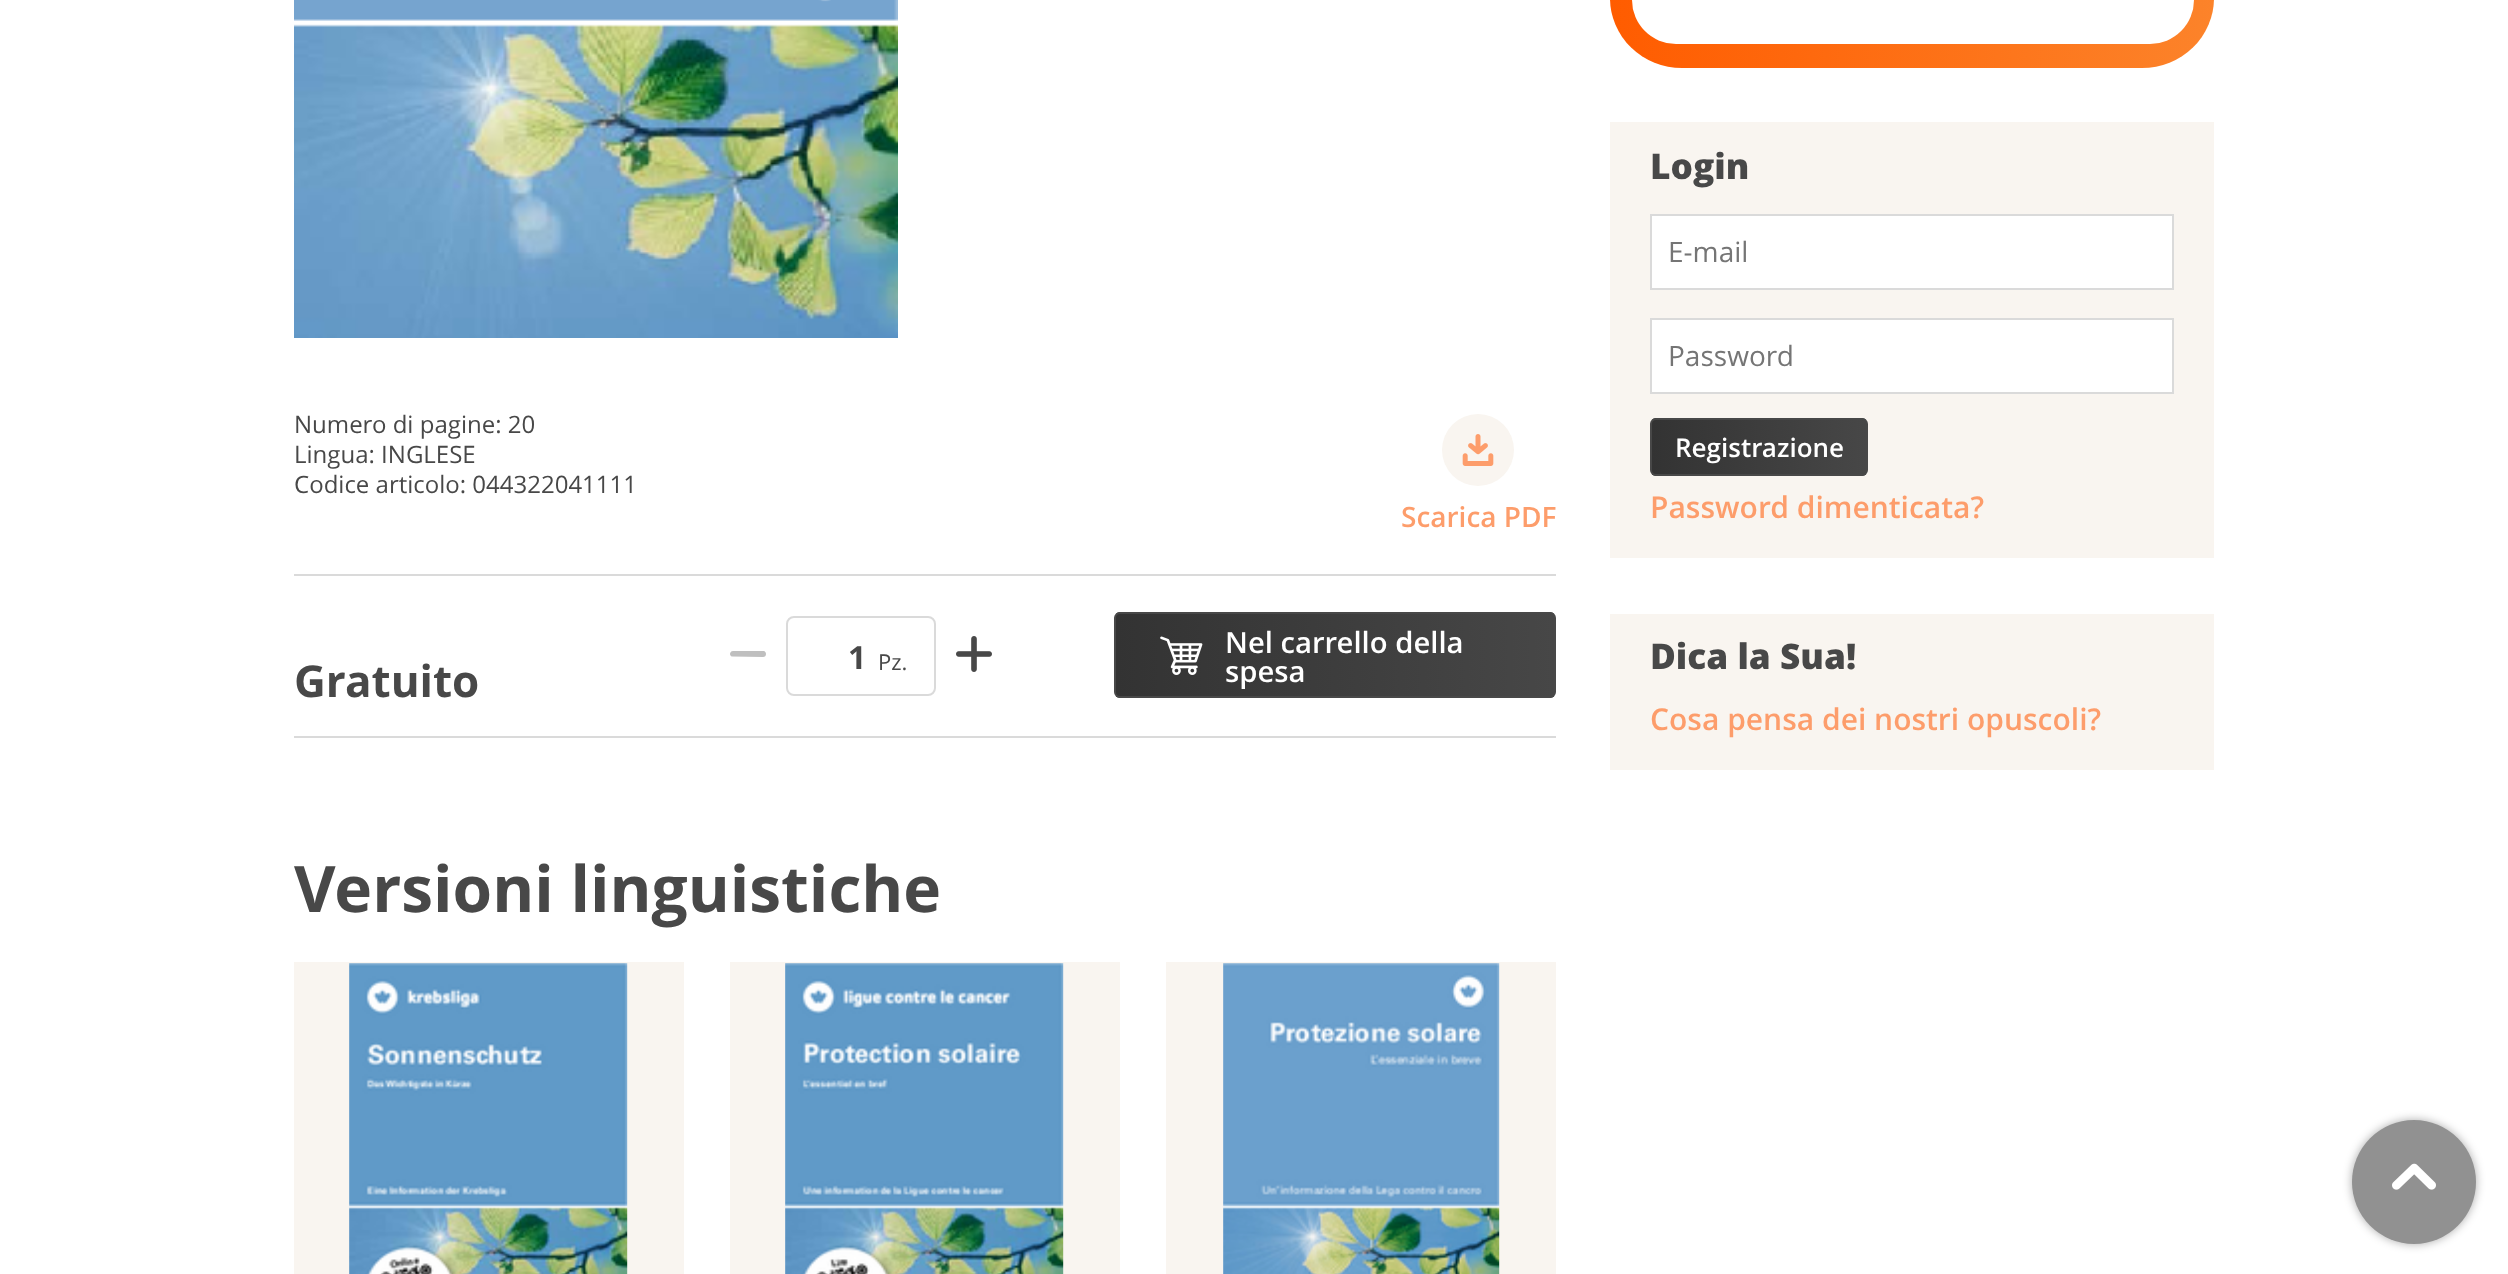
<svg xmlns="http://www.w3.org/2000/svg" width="2508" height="1274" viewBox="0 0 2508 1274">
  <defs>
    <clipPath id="clip1"><rect x="1114" y="612" width="442" height="86" rx="6"/></clipPath>
    <linearGradient id="g1" gradientUnits="userSpaceOnUse" x1="1116" y1="655" x2="1554" y2="655"><stop offset="0" stop-color="rgb(51,51,51)"/><stop offset="1" stop-color="rgb(71,71,71)"/></linearGradient>
    <linearGradient id="g2" gradientUnits="userSpaceOnUse" x1="1610" y1="-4" x2="2214" y2="-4"><stop offset="0" stop-color="rgb(255,92,0)"/><stop offset="1" stop-color="rgb(252,131,42)"/></linearGradient>
    <clipPath id="clip2"><rect x="1650" y="418" width="218" height="58" rx="6"/></clipPath>
    <linearGradient id="g3" gradientUnits="userSpaceOnUse" x1="1652" y1="447" x2="1866" y2="447"><stop offset="0" stop-color="rgb(51,51,51)"/><stop offset="1" stop-color="rgb(71,71,71)"/></linearGradient>
  </defs>
  <rect width="100%" height="100%" fill="rgb(255,255,255)"/>
  <image x="294" y="0" width="604" height="338" href="pic1.png"/>
  <g font-family="Open Sans" font-size="24" fill="rgb(72,72,72)">
    <text>
      <tspan x="294" y="433">Numero di pagine: 20</tspan>
      <tspan x="294" y="463">Lingua: INGLESE</tspan>
      <tspan x="294" y="493">Codice articolo: 044322041111</tspan>
    </text>
  </g>
  <circle cx="1478" cy="450" r="36" fill="rgb(249,245,240)"/>
  <image x="1462" y="434" width="32" height="32" href="pic2.png"/>
  <text x="1401" y="527" font-family="Open Sans" font-size="28" font-weight="600" fill="rgb(253,157,107)">Scarica PDF</text>
  <rect x="294" y="574" width="1262" height="2" fill="rgb(218,218,218)"/>
  <rect x="294" y="736" width="1262" height="2" fill="rgb(218,218,218)"/>
  <path d="M763 657L732 656.5C729 656 729.5 651 733 651H764C767 652 766.5 657 763 657Z" fill="rgb(191,191,191)"/>
  <rect x="787" y="617" width="148" height="78" rx="7" fill="none" stroke="rgb(218,218,218)" stroke-width="2"/>
  <text x="848" y="669" font-family="Open Sans" font-size="32" font-weight="bold" fill="rgb(72,72,72)">1</text>
  <text x="878" y="670" font-family="Open Sans" font-size="22" fill="rgb(72,72,72)">Pz.</text>
  <image x="956" y="636" width="36" height="36" href="pic3.png"/>
  <g clip-path="url(#clip1)">
    <rect x="1116" y="612" width="438" height="86" fill="url(#g1)"/>
  </g>
  <rect x="1115" y="613" width="440" height="84" rx="5" fill="none" stroke="rgb(72,72,72)" stroke-width="2"/>
  <image x="1160" y="636" width="43" height="39" href="pic4.png"/>
  <g font-family="Open Sans" font-size="29.25" font-weight="600" fill="rgb(255,255,255)">
    <text>
      <tspan x="1225" y="653">Nel carrello della</tspan>
      <tspan x="1225" y="682">spesa</tspan>
    </text>
  </g>
  <text x="294" y="697" font-family="Open Sans" font-size="44" font-weight="bold" fill="rgb(72,72,72)">Gratuito</text>
  <text x="294" y="912" font-family="Open Sans" font-size="64" font-weight="bold" fill="rgb(72,72,72)">Versioni linguistiche</text>
  <rect x="294" y="962" width="390" height="312" fill="rgb(249,245,240)"/>
  <image x="349" y="963" width="279" height="311" href="pic5.png"/>
  <rect x="730" y="962" width="390" height="312" fill="rgb(249,245,240)"/>
  <image x="785" y="963" width="279" height="311" href="pic6.png"/>
  <rect x="1166" y="962" width="390" height="312" fill="rgb(249,245,240)"/>
  <image x="1223" y="963" width="277" height="311" href="pic7.png"/>
  <rect x="1610" y="-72" width="604" height="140" rx="72" fill="url(#g2)"/>
  <rect x="1632" y="-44" width="562" height="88" rx="44" fill="rgb(255,255,255)"/>
  <rect x="1610" y="122" width="604" height="436" fill="rgb(249,245,240)"/>
  <text x="1650" y="179" font-family="Open Sans" font-size="35.25" font-weight="800" fill="rgb(72,72,72)">Login</text>
  <rect x="1651" y="215" width="522" height="74" fill="rgb(255,255,255)" stroke="rgb(218,218,218)" stroke-width="2"/>
  <text x="1668" y="262" font-family="Open Sans" font-size="28" fill="rgb(117,117,117)">E-mail</text>
  <rect x="1651" y="319" width="522" height="74" fill="rgb(255,255,255)" stroke="rgb(218,218,218)" stroke-width="2"/>
  <text x="1668" y="366" font-family="Open Sans" font-size="28" fill="rgb(117,117,117)">Password</text>
  <g clip-path="url(#clip2)">
    <rect x="1652" y="418" width="214" height="58" fill="url(#g3)"/>
  </g>
  <rect x="1651" y="419" width="216" height="56" rx="5" fill="none" stroke="rgb(72,72,72)" stroke-width="2"/>
  <text x="1675" y="457" font-family="Open Sans" font-size="26" font-weight="600" fill="rgb(255,255,255)">Registrazione</text>
  <text x="1650" y="518" font-family="Open Sans" font-size="30" font-weight="600" fill="rgb(253,157,107)">Password dimenticata?</text>
  <rect x="1610" y="614" width="604" height="156" fill="rgb(249,245,240)"/>
  <text x="1650" y="669" font-family="Open Sans" font-size="35.25" font-weight="800" fill="rgb(72,72,72)">Dica la Sua!</text>
  <text x="1650" y="730" font-family="Open Sans" font-size="30" font-weight="600" fill="rgb(253,157,107)">Cosa pensa dei nostri opuscoli?</text>
  <rect x="2352" y="1120" width="124" height="124" rx="62" fill="rgba(0,0,0,0.33)" filter="blur(5px)"/>
  <circle cx="2414" cy="1182" r="62" fill="rgb(145,145,145)"/>
  <image x="2392" y="1163" width="44" height="27" href="pic8.png"/>
</svg>
